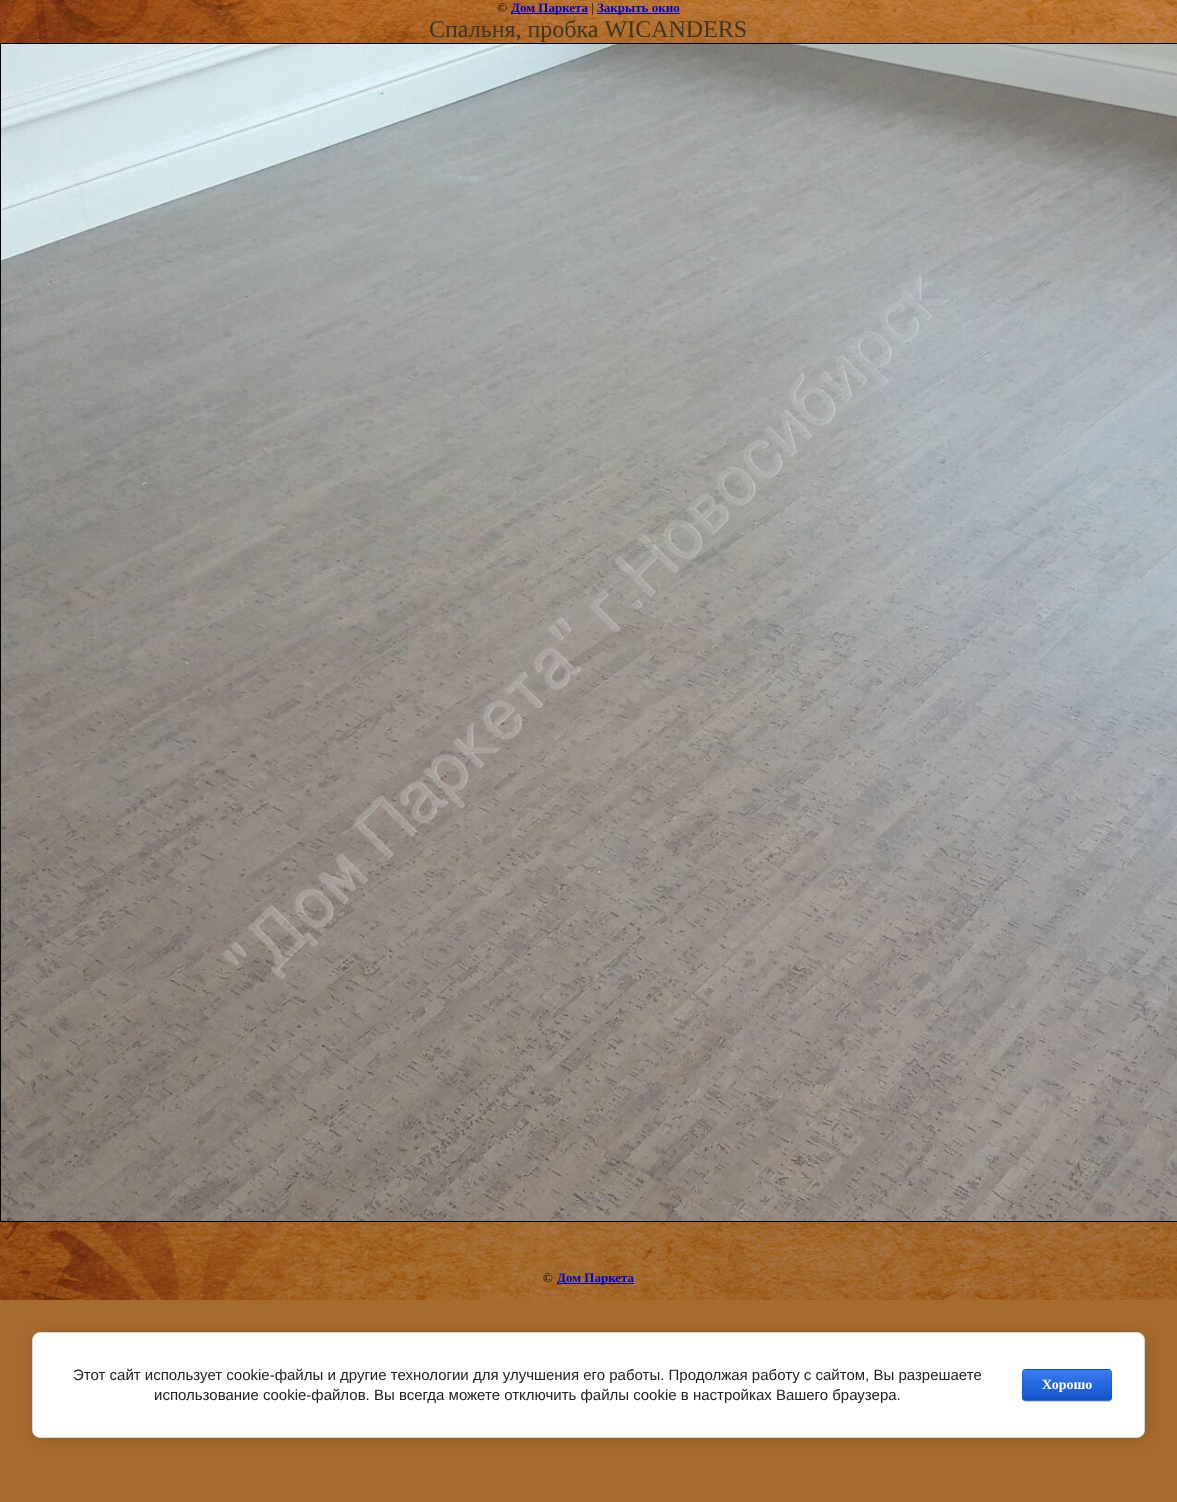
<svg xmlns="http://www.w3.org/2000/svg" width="1177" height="1502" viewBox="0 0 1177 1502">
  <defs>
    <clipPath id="clip1"><rect x="1022" y="1369" width="90" height="32" rx="4"/></clipPath>
    <linearGradient id="g1" gradientUnits="userSpaceOnUse" x1="1067" y1="1340" x2="1067" y2="1370"><stop offset="0" stop-color="rgb(59,124,239)"/><stop offset="1" stop-color="rgb(17,85,204)"/></linearGradient>
    <linearGradient id="g2" gradientUnits="userSpaceOnUse" x1="1067" y1="1370" x2="1067" y2="1400"><stop offset="0" stop-color="rgb(59,124,239)"/><stop offset="1" stop-color="rgb(17,85,204)"/></linearGradient>
    <linearGradient id="g3" gradientUnits="userSpaceOnUse" x1="1067" y1="1400" x2="1067" y2="1430"><stop offset="0" stop-color="rgb(59,124,239)"/><stop offset="1" stop-color="rgb(17,85,204)"/></linearGradient>
  </defs>
  <rect width="100%" height="100%" fill="rgb(167,107,45)"/>
  <image x="0" y="0" width="1177" height="1300" href="pic1.png"/>
  <text x="497" y="12" font-family="Liberation Serif" font-size="13" fill="rgb(0,0,0)">©</text>
  <rect x="511" y="13" width="77" height="1" fill="rgb(0,0,204)"/>
  <text x="511" y="12" font-family="Liberation Serif" font-size="13" font-weight="bold" fill="rgb(0,0,204)">Дом Паркета</text>
  <text x="591" y="12" font-family="Liberation Serif" font-size="13" fill="rgb(0,0,0)">|</text>
  <rect x="597" y="13" width="83" height="1" fill="rgb(0,0,204)"/>
  <text x="597" y="12" font-family="Liberation Serif" font-size="13" font-weight="bold" fill="rgb(0,0,204)">Закрыть окно</text>
  <text x="429" y="37" font-family="Liberation Serif" font-size="24" fill="rgb(61,54,37)">Спальня, пробка WICANDERS</text>
  <rect x="0.5" y="43.5" width="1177" height="1178" fill="none" stroke="rgb(0,0,0)"/>
  <image x="1" y="44" width="1176" height="1177" href="pic2.png"/>
  <text x="543" y="1282" font-family="Liberation Serif" font-size="13" fill="rgb(0,0,0)">©</text>
  <rect x="557" y="1283" width="77" height="1" fill="rgb(0,0,204)"/>
  <text x="557" y="1282" font-family="Liberation Serif" font-size="13" font-weight="bold" fill="rgb(0,0,204)">Дом Паркета</text>
  <rect x="34" y="1334" width="1113" height="106" rx="8" fill="rgba(0,0,0,0.14)" filter="blur(9px)"/>
  <rect x="32.5" y="1332.5" width="1112" height="105" rx="7.5" fill="rgb(255,255,255)" stroke="rgb(214,214,214)"/>
  <g font-family="Liberation Sans" font-size="15" fill="rgb(33,33,33)">
    <text x="73" y="1380">Этот сайт использует cookie-файлы и другие технологии для улучшения его работы. Продолжая работу с сайтом, Вы разрешаете</text>
    <text x="154" y="1400">использование cookie-файлов. Вы всегда можете отключить файлы cookie в настройках Вашего браузера.</text>
  </g>
  <rect x="1022" y="1370" width="90" height="32" rx="4" fill="rgba(0,0,0,0.2)" filter="blur(0.5px)"/>
  <g clip-path="url(#clip1)">
    <rect x="1022" y="1369" width="90" height="1" fill="url(#g1)"/>
    <rect x="1022" y="1370" width="90" height="30" fill="url(#g2)"/>
    <rect x="1022" y="1400" width="90" height="1" fill="url(#g3)"/>
  </g>
  <rect x="1022.5" y="1369.5" width="89" height="31" rx="3.5" fill="none" stroke="rgba(0,0,0,0.1)"/>
  <text x="1042" y="1389" font-family="Liberation Serif" font-size="14" font-weight="bold" fill="rgb(255,255,255)">Хорошо</text>
</svg>
